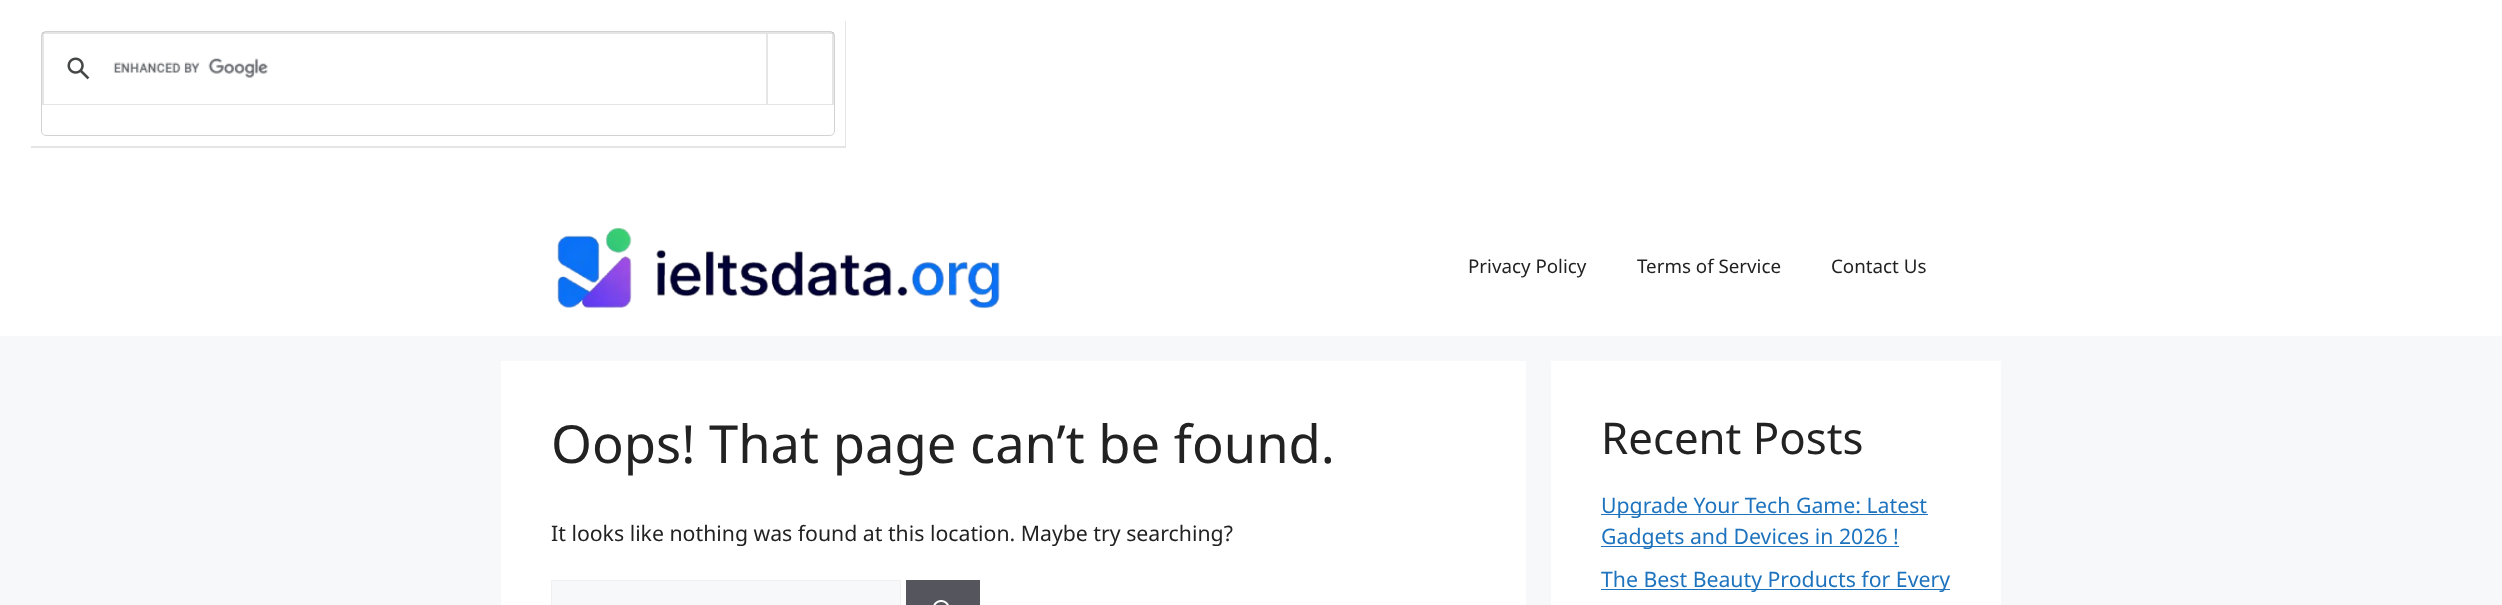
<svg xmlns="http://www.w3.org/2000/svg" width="2502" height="605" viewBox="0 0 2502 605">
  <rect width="100%" height="100%" fill="rgb(247,248,249)"/>
  <rect x="0" y="0" width="2502" height="336" fill="rgb(255,255,255)"/>
  <path d="M846 21V148L845 146V21Z" fill="rgb(230,230,230)"/>
  <path d="M846 148H31V146H845Z" fill="rgba(0,0,0,0.1)"/>
  <rect x="41.5" y="31.5" width="793" height="104" rx="4.5" fill="none" stroke="rgb(210,210,210)"/>
  <path d="M42 32H834V34H44Z" fill="rgba(0,0,0,0.1)"/>
  <path d="M42 105V32L44 34V105Z" fill="rgba(0,0,0,0.1)"/>
  <image x="67" y="57" width="23" height="23" href="pic1.png"/>
  <path d="M768 34V105L766 104V34Z" fill="rgb(230,230,230)"/>
  <path d="M768 105H44V104H766Z" fill="rgba(0,0,0,0.1)"/>
  <image x="113" y="58" width="155" height="20" href="pic2.png"/>
  <path d="M834 34V105L832 104V34Z" fill="rgba(0,0,0,0.1)"/>
  <path d="M834 105H768V104H832Z" fill="rgba(0,0,0,0.1)"/>
  <image x="557" y="227" width="443" height="82" href="pic3.png"/>
  <g font-family="Noto Sans" font-size="18.75" fill="rgb(34,34,34)">
    <text x="1468" y="273">Privacy Policy</text>
    <text x="1637" y="273">Terms of Service</text>
    <text x="1831" y="273">Contact Us</text>
  </g>
  <rect x="501" y="361" width="1025" height="244" fill="rgb(255,255,255)"/>
  <text x="551" y="463" font-family="Noto Sans" font-size="52.5" fill="rgb(34,34,34)">Oops! That page can’t be found.</text>
  <text x="551" y="541" font-family="Noto Sans" font-size="21.25" fill="rgb(34,34,34)">It looks like nothing was found at this location. Maybe try searching?</text>
  <rect x="551.5" y="580.5" width="349" height="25" fill="rgb(247,248,249)" stroke="rgb(240,240,240)"/>
  <rect x="906" y="580" width="74" height="25" fill="rgb(85,85,94)"/>
  <image x="933" y="600" width="16" height="5" href="pic4.png"/>
  <rect x="1551" y="361" width="450" height="244" fill="rgb(255,255,255)"/>
  <text x="1601" y="454" font-family="Noto Sans" font-size="43.75" fill="rgb(34,34,34)">Recent Posts</text>
  <rect x="1601" y="514" width="327" height="1" fill="rgb(30,115,190)"/>
  <text x="1601" y="513" font-family="Noto Sans" font-size="21.25" fill="rgb(30,115,190)">Upgrade Your Tech Game: Latest</text>
  <rect x="1601" y="546" width="298" height="1" fill="rgb(30,115,190)"/>
  <text x="1601" y="544" font-family="Noto Sans" font-size="21.25" fill="rgb(30,115,190)">Gadgets and Devices in 2026 !</text>
  <rect x="1601" y="589" width="349" height="1" fill="rgb(30,115,190)"/>
  <text x="1601" y="587" font-family="Noto Sans" font-size="21.25" fill="rgb(30,115,190)">The Best Beauty Products for Every</text>
</svg>
